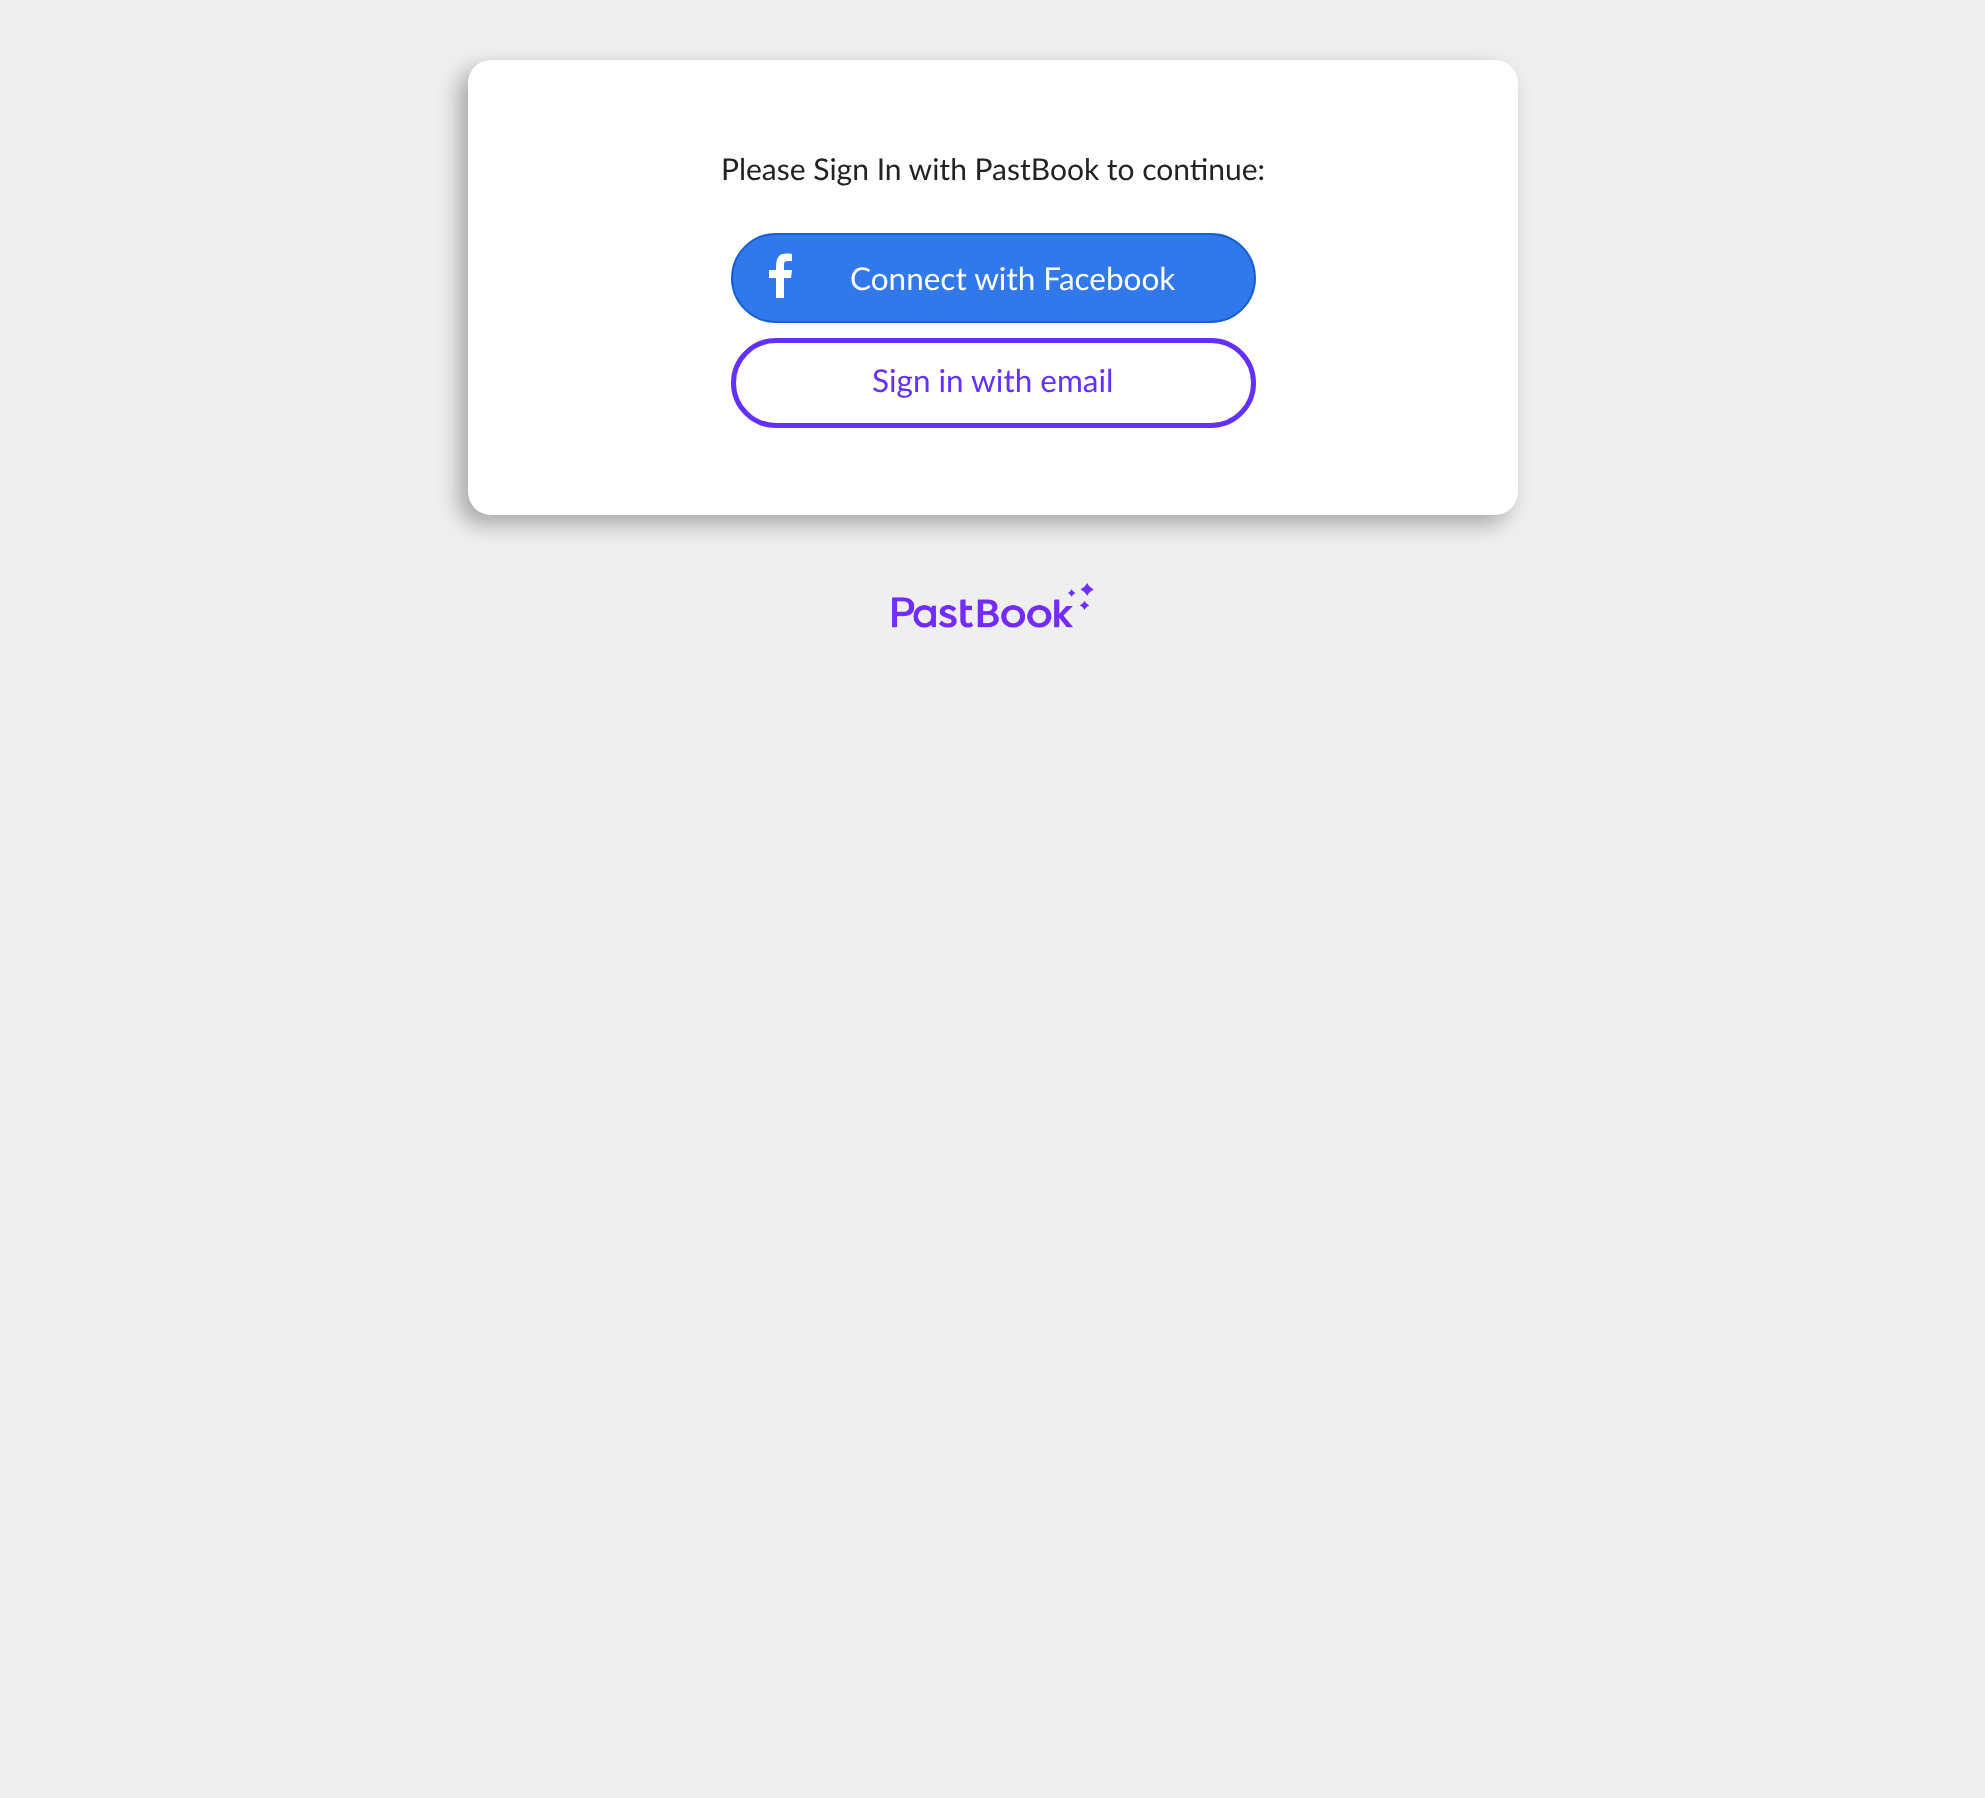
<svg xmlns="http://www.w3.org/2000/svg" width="1985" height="1798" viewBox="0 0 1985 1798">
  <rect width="100%" height="100%" fill="rgb(239,239,239)"/>
  <rect x="459" y="69" width="1050" height="455" rx="23" fill="rgba(0,0,0,0.3)" filter="blur(11px)"/>
  <rect x="468" y="60" width="1050" height="455" rx="23" fill="rgb(255,255,255)"/>
  <text x="721" y="180" font-family="Lato" font-size="30" fill="rgb(34,34,34)">Please Sign In with PastBook to continue:</text>
  <rect x="732" y="234" width="523" height="88" rx="44" fill="rgb(49,120,234)" stroke="rgb(21,94,211)" stroke-width="2"/>
  <path d="M792 254V261C783 261 784 261 784 270H792L791 278H784V298H776V278H769V270H776C776 257 778 252 792 254Z" fill="rgb(255,255,255)"/>
  <text x="850" y="290" font-family="Lato" font-size="31.5" fill="rgb(255,255,255)">Connect with Facebook</text>
  <rect x="733.5" y="340.5" width="520" height="85" rx="42.5" fill="none" stroke="rgb(100,48,255)" stroke-width="5"/>
  <text x="872" y="392" font-family="Lato" font-size="31.5" fill="rgb(100,48,255)">Sign in with email</text>
  <image x="892" y="582" width="202" height="46" href="pic1.png"/>
</svg>
